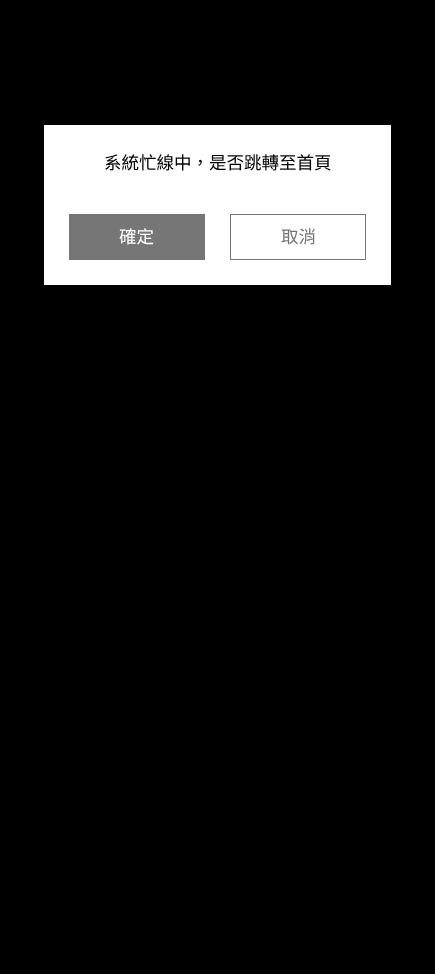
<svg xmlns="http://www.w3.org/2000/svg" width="435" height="974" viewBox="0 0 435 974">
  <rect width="100%" height="100%" fill="rgb(0,0,0)"/>
  <image x="154" y="32" width="126" height="12" href="pic1.png"/>
  <image x="300" y="24" width="21" height="24" href="pic2.png"/>
  <image x="346" y="25" width="22" height="25" href="pic3.png"/>
  <rect x="44" y="125" width="347" height="160" fill="rgb(255,255,255)"/>
  <text x="104" y="169" font-family="Noto Sans TC" font-size="17.5" font-weight="100" fill="rgb(0,0,0)">系統忙線中，是否跳轉至首頁</text>
  <rect x="69" y="214" width="136" height="46" fill="rgb(118,118,118)"/>
  <text x="119" y="243" font-family="Noto Sans TC" font-size="17.5" font-weight="100" fill="rgb(255,255,255)">確定</text>
  <rect x="230.5" y="214.5" width="135" height="45" fill="none" stroke="rgb(118,118,118)"/>
  <text x="281" y="243" font-family="Noto Sans TC" font-size="17.5" font-weight="100" fill="rgb(118,118,118)">取消</text>
  <image x="13" y="463" width="45" height="45" href="pic4.png"/>
  <image x="80" y="463" width="45" height="45" href="pic5.png"/>
  <image x="148" y="463" width="45" height="45" href="pic6.png"/>
</svg>
